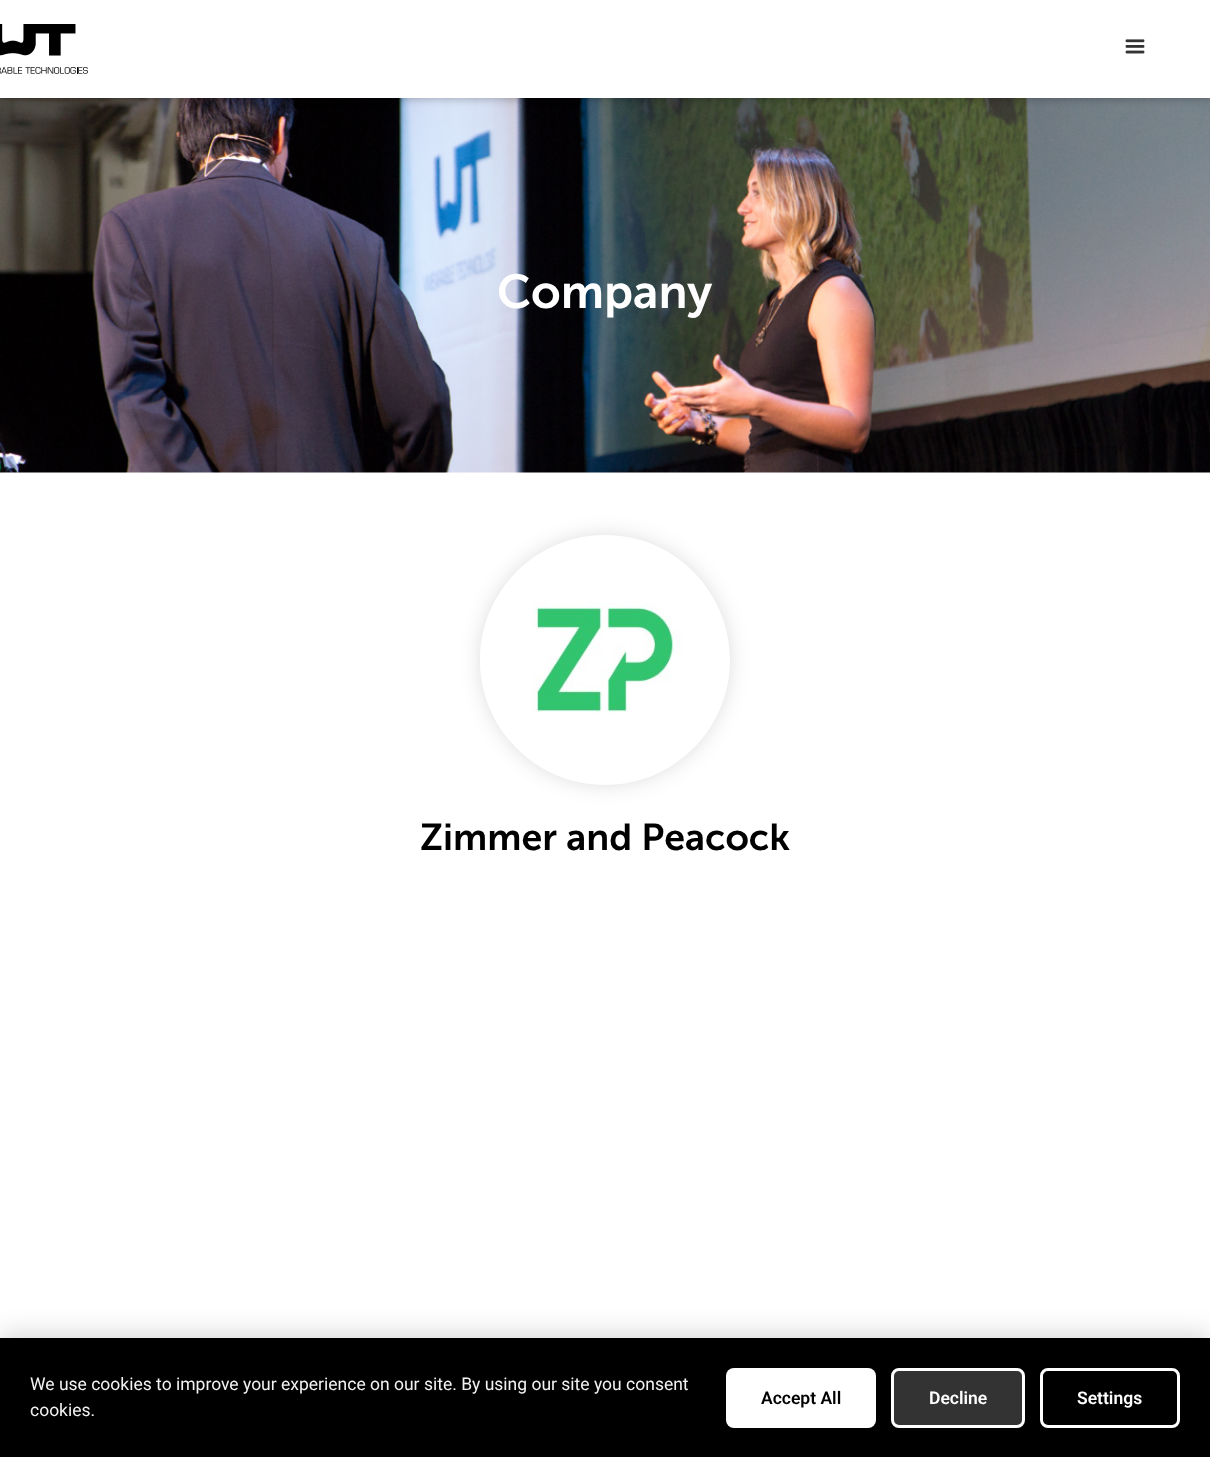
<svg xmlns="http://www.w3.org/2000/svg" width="1210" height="1457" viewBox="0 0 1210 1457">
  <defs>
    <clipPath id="clip1"><path d="M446 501H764V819H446ZM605 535C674 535 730 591 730 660C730 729 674 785 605 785C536 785 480 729 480 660C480 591 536 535 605 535Z" clip-rule="evenodd"/></clipPath>
  </defs>
  <rect width="100%" height="100%" fill="rgb(255,255,255)"/>
  <image x="0" y="98" width="1210" height="375" href="pic3.png"/>
  <rect x="1" y="1" width="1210" height="98" fill="rgba(0,0,0,0.25)" filter="blur(4px)"/>
  <rect x="0" y="0" width="1210" height="98" fill="rgb(255,255,255)"/>
  <image x="0" y="24" width="88" height="50" href="pic1.png"/>
  <image x="1125" y="39" width="20" height="15" href="pic2.png"/>
  <text x="497" y="308" font-family="'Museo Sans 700'" font-size="47.5" font-weight="600" fill="rgb(255,255,255)">Company</text>
  <g clip-path="url(#clip1)">
    <rect x="485" y="540" width="240" height="240" rx="120" fill="rgba(0,0,0,0.2)" filter="blur(12.5px)"/>
  </g>
  <image x="532" y="602" width="150" height="111" href="pic4.png"/>
  <text x="420" y="850" font-family="'Museo Sans 700'" font-size="37.5" font-weight="600" fill="rgb(0,0,0)">Zimmer and Peacock</text>
  <rect x="0" y="1333" width="1210" height="120" fill="rgba(0,0,0,0.15)" filter="blur(12.5px)"/>
  <rect x="0" y="1338" width="1210" height="119" fill="rgb(0,0,0)"/>
  <g font-family="Roboto" font-size="17.5" fill="rgb(242,242,242)">
    <text>
      <tspan x="30" y="1390">We use cookies to improve your experience on our site. By using our site you consent</tspan>
      <tspan x="30" y="1416">cookies.</tspan>
    </text>
  </g>
  <rect x="726" y="1368" width="150" height="60" rx="8" fill="rgb(255,255,255)"/>
  <text x="761" y="1404" font-family="Roboto" font-size="17.5" font-weight="600" fill="rgb(0,0,0)">Accept All</text>
  <rect x="892.5" y="1369.5" width="131" height="57" rx="6.5" fill="rgb(51,51,51)" stroke="rgb(255,255,255)" stroke-width="3"/>
  <text x="929" y="1404" font-family="Roboto" font-size="17.5" font-weight="600" fill="rgb(255,255,255)">Decline</text>
  <rect x="1041.5" y="1369.5" width="137" height="57" rx="6.5" fill="none" stroke="rgb(255,255,255)" stroke-width="3"/>
  <text x="1077" y="1404" font-family="Roboto" font-size="17.5" font-weight="600" fill="rgb(255,255,255)">Settings</text>
</svg>
